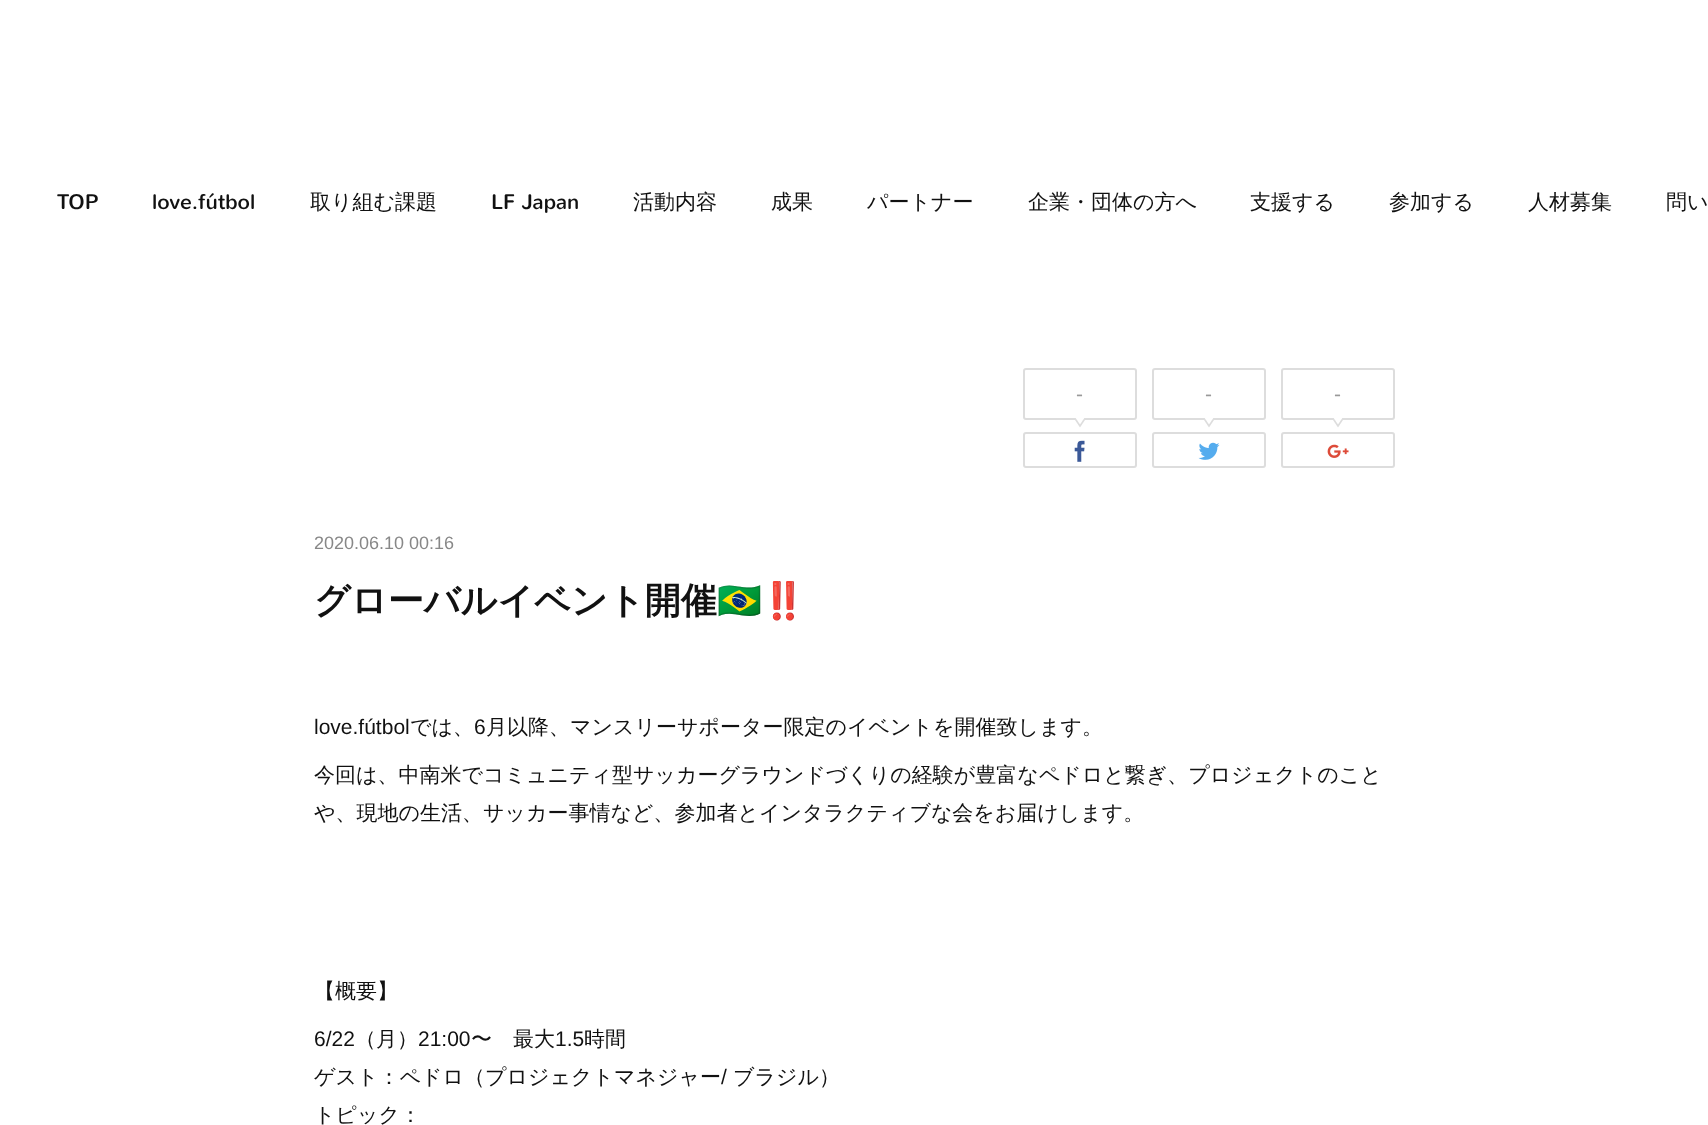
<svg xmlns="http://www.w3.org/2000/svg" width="1708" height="1125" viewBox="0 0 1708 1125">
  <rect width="100%" height="100%" fill="rgb(255,255,255)"/>
  <g font-family="Nunito" font-size="21" fill="rgb(17,17,17)">
    <text x="57" y="209">TOP</text>
    <text x="152" y="209">love.fútbol</text>
  </g>
  <text x="310" y="209" font-family="WenQuanYi Zen Hei" font-size="21" font-weight="500" fill="rgb(17,17,17)">取り組む課題</text>
  <text x="491" y="209" font-family="Nunito" font-size="21" fill="rgb(17,17,17)">LF Japan</text>
  <g font-family="WenQuanYi Zen Hei" font-size="21" font-weight="500" fill="rgb(17,17,17)">
    <text x="633" y="209">活動内容</text>
    <text x="771" y="209">成果</text>
    <text x="867" y="209">パートナー</text>
    <text x="1028" y="209">企業・団体の方へ</text>
    <text x="1250" y="209">支援する</text>
    <text x="1389" y="209">参加する</text>
    <text x="1528" y="209">人材募集</text>
    <text x="1666" y="209">問い</text>
  </g>
  <rect x="1024" y="369" width="112" height="50" rx="2" fill="none" stroke="rgb(221,221,221)" stroke-width="2"/>
  <text x="1076" y="401" font-family="Liberation Sans" font-size="21" fill="rgb(153,153,153)">-</text>
  <path d="M1074 418.5H1086L1080 427.5Z" fill="rgb(221,221,221)"/>
  <path d="M1074 415.5H1086L1080 424.5Z" fill="rgb(255,255,255)"/>
  <rect x="1024" y="433" width="112" height="34" rx="2" fill="none" stroke="rgb(221,221,221)" stroke-width="2"/>
  <image x="1074" y="440" width="11" height="22" href="pic1.png"/>
  <rect x="1153" y="369" width="112" height="50" rx="2" fill="none" stroke="rgb(221,221,221)" stroke-width="2"/>
  <text x="1205" y="401" font-family="Liberation Sans" font-size="21" fill="rgb(153,153,153)">-</text>
  <path d="M1203 418.5H1215L1209 427.5Z" fill="rgb(221,221,221)"/>
  <path d="M1203 415.5H1215L1209 424.5Z" fill="rgb(255,255,255)"/>
  <rect x="1153" y="433" width="112" height="34" rx="2" fill="none" stroke="rgb(221,221,221)" stroke-width="2"/>
  <image x="1198" y="442" width="22" height="18" href="pic2.png"/>
  <rect x="1282" y="369" width="112" height="50" rx="2" fill="none" stroke="rgb(221,221,221)" stroke-width="2"/>
  <text x="1334" y="401" font-family="Liberation Sans" font-size="21" fill="rgb(153,153,153)">-</text>
  <path d="M1332 418.5H1344L1338 427.5Z" fill="rgb(221,221,221)"/>
  <path d="M1332 415.5H1344L1338 424.5Z" fill="rgb(255,255,255)"/>
  <rect x="1282" y="433" width="112" height="34" rx="2" fill="none" stroke="rgb(221,221,221)" stroke-width="2"/>
  <image x="1327" y="444" width="22" height="14" href="pic3.png"/>
  <text x="314" y="549" font-family="Liberation Sans" font-size="18" fill="rgb(136,136,136)">2020.06.10 00:16</text>
  <text x="314" y="613" font-family="WenQuanYi Zen Hei" font-size="36" font-weight="bold" fill="rgb(17,17,17)">グローバルイベント開催</text>
  <text x="717" y="613" font-family="Noto Color Emoji" font-size="36" font-weight="bold" fill="rgb(17,17,17)">🇧🇷‼️</text>
  <text x="314" y="734" font-family="Liberation Sans" font-size="21" fill="rgb(17,17,17)">love.fútbol</text>
  <text x="410" y="734" font-family="WenQuanYi Zen Hei" font-size="21" font-weight="500" fill="rgb(17,17,17)">では、</text>
  <text x="474" y="734" font-family="Liberation Sans" font-size="21" fill="rgb(17,17,17)">6</text>
  <g font-family="WenQuanYi Zen Hei" font-size="21" font-weight="500" fill="rgb(17,17,17)">
    <text x="486" y="734">月以降、マンスリーサポーター限定のイベントを開催致します。</text>
    <text>
      <tspan x="314" y="782">今回は、中南米でコミュニティ型サッカーグラウンドづくりの経験が豊富なペドロと繋ぎ、プロジェクトのこと</tspan>
      <tspan x="314" y="820">や、現地の生活、サッカー事情など、参加者とインタラクティブな会をお届けします。</tspan>
    </text>
    <text x="314" y="998">【概要】</text>
  </g>
  <text x="314" y="1046" font-family="Liberation Sans" font-size="21" fill="rgb(17,17,17)">6/22</text>
  <text x="355" y="1046" font-family="WenQuanYi Zen Hei" font-size="21" font-weight="500" fill="rgb(17,17,17)">（月）</text>
  <text x="418" y="1046" font-family="Liberation Sans" font-size="21" fill="rgb(17,17,17)">21:00</text>
  <text x="471" y="1046" font-family="WenQuanYi Zen Hei" font-size="21" font-weight="500" fill="rgb(17,17,17)">〜　最大</text>
  <text x="555" y="1046" font-family="Liberation Sans" font-size="21" fill="rgb(17,17,17)">1.5</text>
  <g font-family="WenQuanYi Zen Hei" font-size="21" font-weight="500" fill="rgb(17,17,17)">
    <text x="584" y="1046">時間</text>
    <text x="314" y="1084">ゲスト：ペドロ（プロジェクトマネジャー</text>
  </g>
  <text x="721" y="1084" font-family="Liberation Sans" font-size="21" fill="rgb(17,17,17)">/</text>
  <g font-family="WenQuanYi Zen Hei" font-size="21" font-weight="500" fill="rgb(17,17,17)">
    <text x="733" y="1084">ブラジル）</text>
    <text x="314" y="1122">トピック：</text>
  </g>
</svg>
